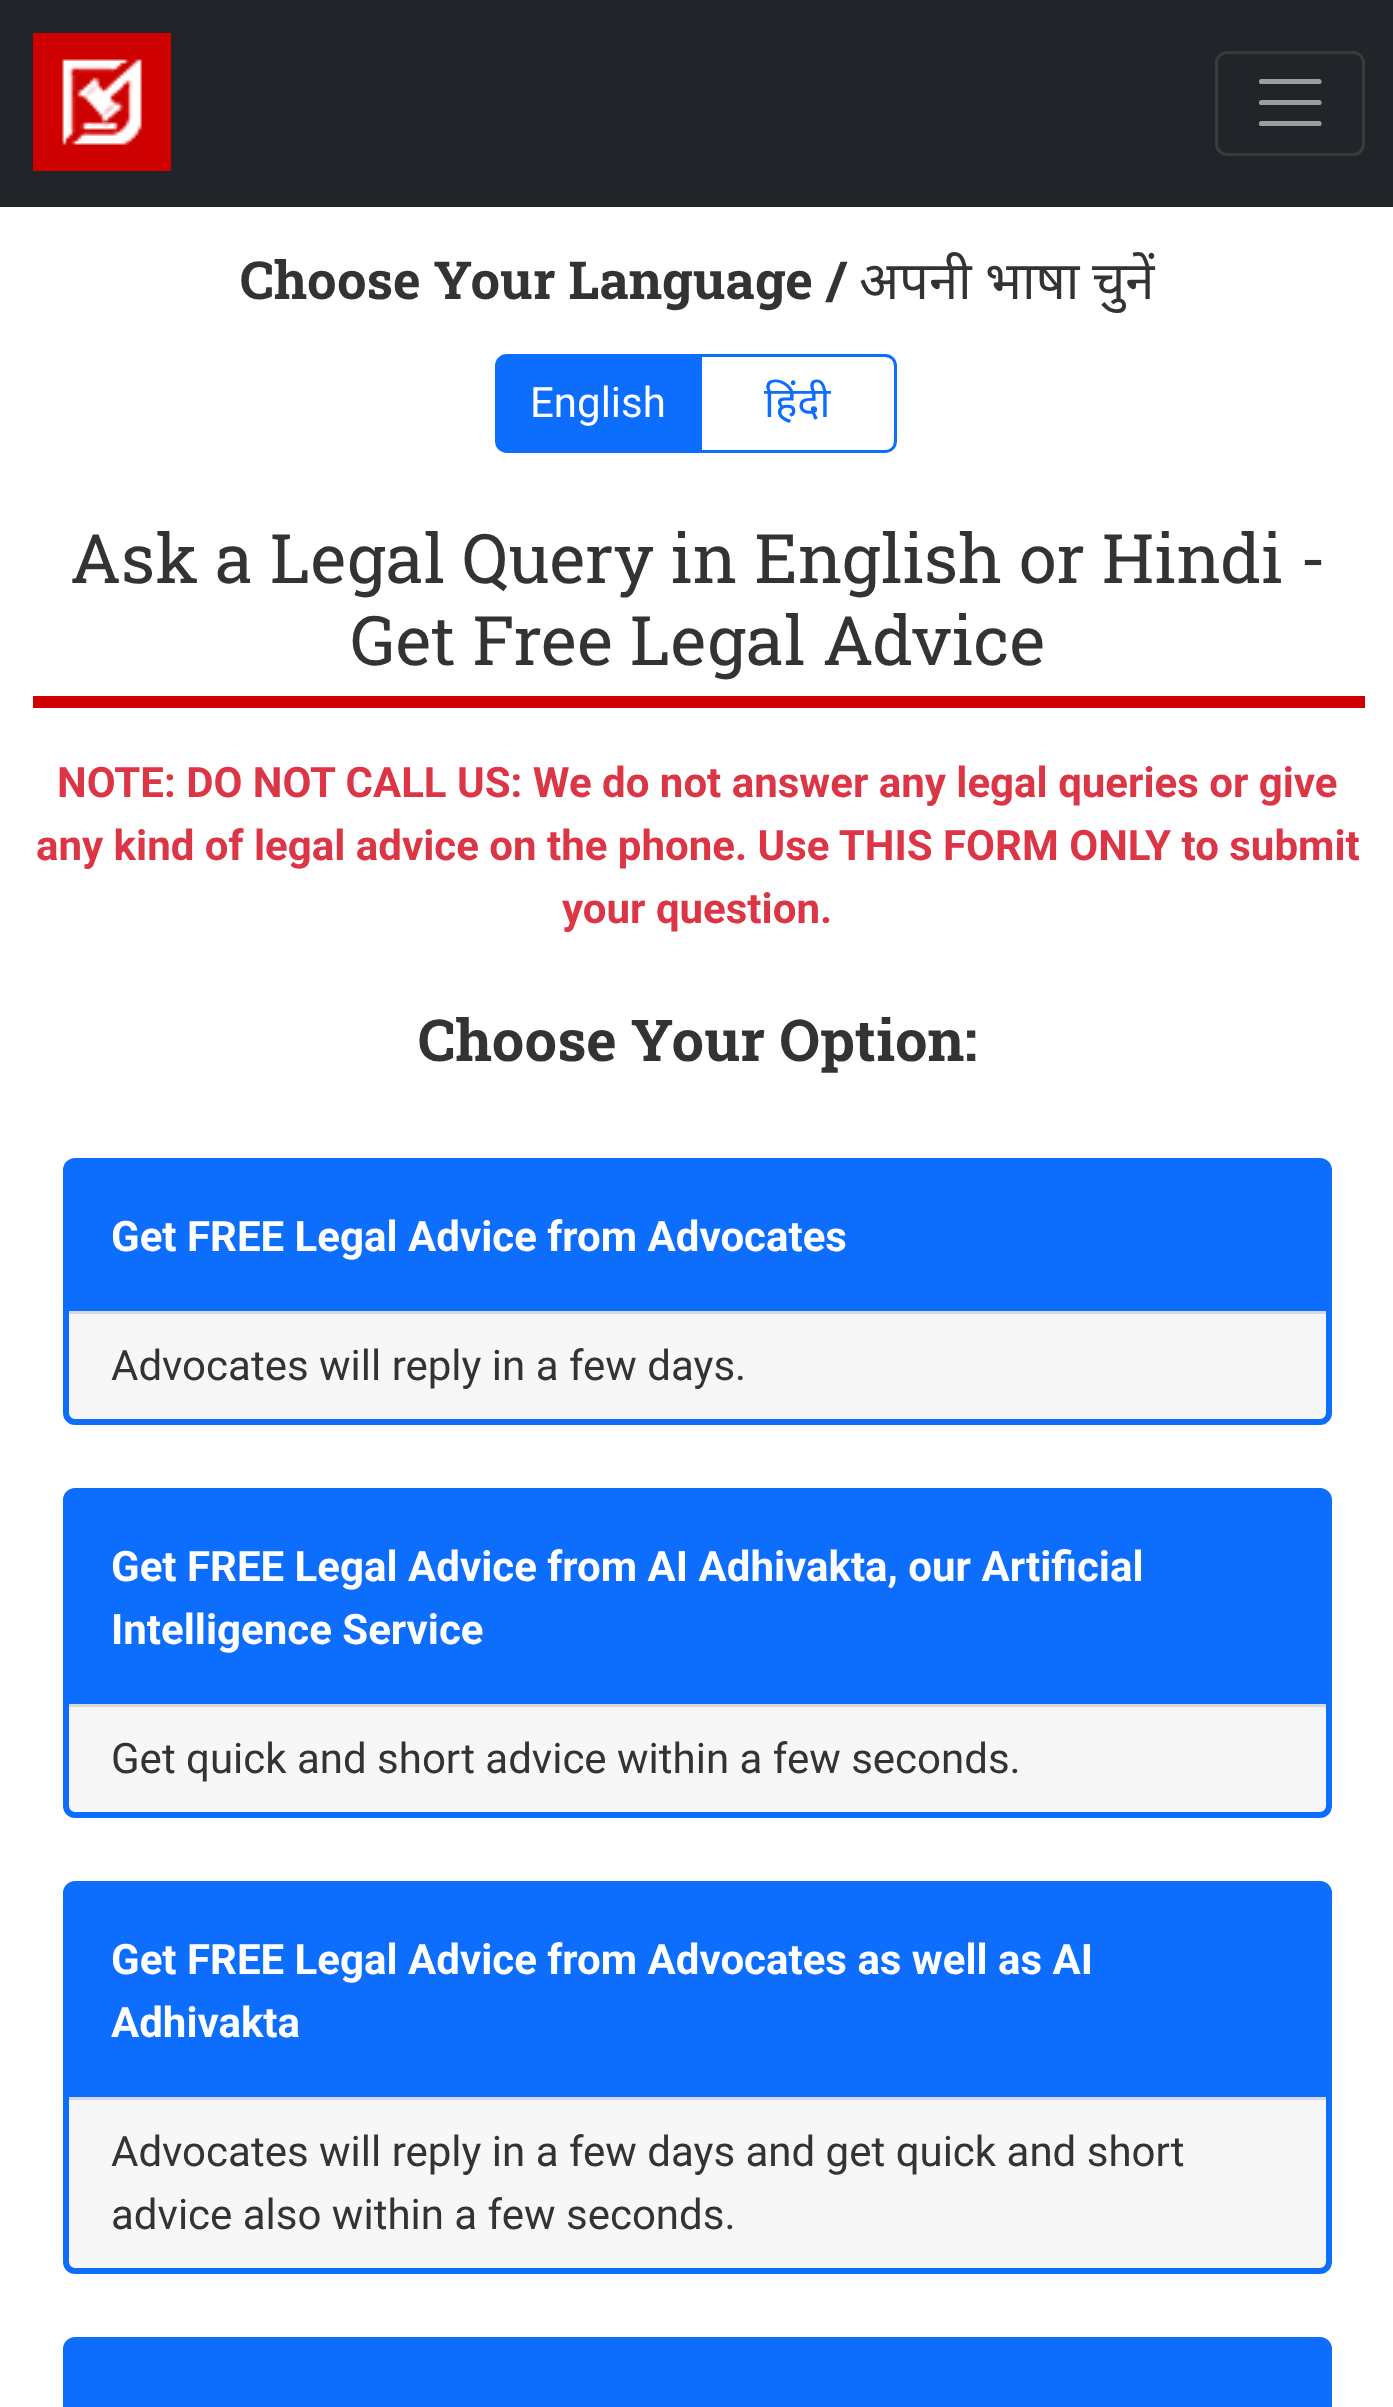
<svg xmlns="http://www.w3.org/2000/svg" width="1393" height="2407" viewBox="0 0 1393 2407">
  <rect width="100%" height="100%" fill="rgb(255,255,255)"/>
  <rect x="0" y="0" width="1393" height="207" fill="rgb(33,37,41)"/>
  <image x="33" y="33" width="138" height="138" href="pic1.png"/>
  <rect x="1216.5" y="52.5" width="147" height="102" rx="10.5" fill="none" stroke="rgb(55,59,62)" stroke-width="3"/>
  <path d="M1261.5 81.5H1319M1261.5 102.5H1319M1261.5 123.5H1319" fill="none" stroke="rgb(155,157,159)" stroke-width="5.2" stroke-linecap="round"/>
  <text x="240" y="299" font-family="Roboto Slab" font-size="52.5" font-weight="bold" fill="rgb(51,51,51)">Choose Your Language /</text>
  <g font-family="Noto Sans" font-size="52.5" fill="rgb(51,51,51)">
    <text x="859" y="299">अपनी</text>
    <text x="985" y="299">भाषा</text>
    <text x="1092" y="299">चुनें</text>
  </g>
  <path d="M700.5 355.5H885C891 355.5 895.5 360 895.5 366V441C895.5 447 891 451.5 885 451.5H700.5Z" fill="none" stroke="rgb(13,110,253)" stroke-width="3"/>
  <path d="M507 355.5H700.5V451.5H507C501 451.5 496.5 447 496.5 441V366C496.5 360 501 355.5 507 355.5Z" fill="rgb(13,110,253)" stroke="rgb(13,110,253)" stroke-width="3"/>
  <text x="530" y="417" font-family="Roboto" font-size="42" fill="rgb(255,255,255)">English</text>
  <text x="764" y="417" font-family="Noto Sans" font-size="42" fill="rgb(13,110,253)">हिंदी</text>
  <rect x="33" y="696" width="1332" height="12" fill="rgb(206,0,0)"/>
  <g font-family="Roboto Slab" font-size="68.25" fill="rgb(51,51,51)">
    <text x="70" y="583">Ask a Legal Query in English or Hindi -</text>
    <text x="350" y="665">Get Free Legal Advice</text>
  </g>
  <g font-family="Roboto" font-size="42" font-weight="bold" fill="rgb(220,53,69)">
    <text x="57" y="797">NOTE: DO NOT CALL US: We do not answer any legal queries or give</text>
    <text x="36" y="860">any kind of legal advice on the phone. Use THIS FORM ONLY to submit</text>
    <text x="562" y="923">your question.</text>
  </g>
  <text x="418" y="1061" font-family="Roboto Slab" font-size="57.75" font-weight="bold" fill="rgb(51,51,51)">Choose Your Option:</text>
  <rect x="66" y="1161" width="1263" height="261" rx="9" fill="none" stroke="rgb(13,110,253)" stroke-width="6"/>
  <rect x="69" y="1164" width="1257" height="147" fill="rgb(13,110,253)"/>
  <text x="111" y="1251" font-family="Roboto" font-size="42" font-weight="bold" fill="rgb(255,255,255)">Get FREE Legal Advice from Advocates</text>
  <rect x="69" y="1314" width="1257" height="105" fill="rgba(0,0,0,0.03)"/>
  <rect x="69" y="1311" width="1257" height="3" fill="rgb(216,216,216)"/>
  <text x="111" y="1380" font-family="Roboto" font-size="42" fill="rgb(51,51,51)">Advocates will reply in a few days.</text>
  <rect x="66" y="1491" width="1263" height="324" rx="9" fill="none" stroke="rgb(13,110,253)" stroke-width="6"/>
  <rect x="69" y="1494" width="1257" height="210" fill="rgb(13,110,253)"/>
  <g font-family="Roboto" font-size="42" font-weight="bold" fill="rgb(255,255,255)">
    <text>
      <tspan x="111" y="1581">Get FREE Legal Advice from AI Adhivakta, our Artificial</tspan>
      <tspan x="111" y="1644">Intelligence Service</tspan>
    </text>
  </g>
  <rect x="69" y="1707" width="1257" height="105" fill="rgba(0,0,0,0.03)"/>
  <rect x="69" y="1704" width="1257" height="3" fill="rgb(216,216,216)"/>
  <text x="111" y="1773" font-family="Roboto" font-size="42" fill="rgb(51,51,51)">Get quick and short advice within a few seconds.</text>
  <rect x="66" y="1884" width="1263" height="387" rx="9" fill="none" stroke="rgb(13,110,253)" stroke-width="6"/>
  <rect x="69" y="1887" width="1257" height="210" fill="rgb(13,110,253)"/>
  <g font-family="Roboto" font-size="42" font-weight="bold" fill="rgb(255,255,255)">
    <text>
      <tspan x="111" y="1974">Get FREE Legal Advice from Advocates as well as AI</tspan>
      <tspan x="111" y="2037">Adhivakta</tspan>
    </text>
  </g>
  <rect x="69" y="2100" width="1257" height="168" fill="rgba(0,0,0,0.03)"/>
  <rect x="69" y="2097" width="1257" height="3" fill="rgb(216,216,216)"/>
  <g font-family="Roboto" font-size="42" fill="rgb(51,51,51)">
    <text>
      <tspan x="111" y="2166">Advocates will reply in a few days and get quick and short</tspan>
      <tspan x="111" y="2229">advice also within a few seconds.</tspan>
    </text>
  </g>
  <rect x="66" y="2340" width="1263" height="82" rx="9" fill="none" stroke="rgb(13,110,253)" stroke-width="6"/>
  <rect x="69" y="2343" width="1257" height="64" fill="rgb(13,110,253)"/>
</svg>
